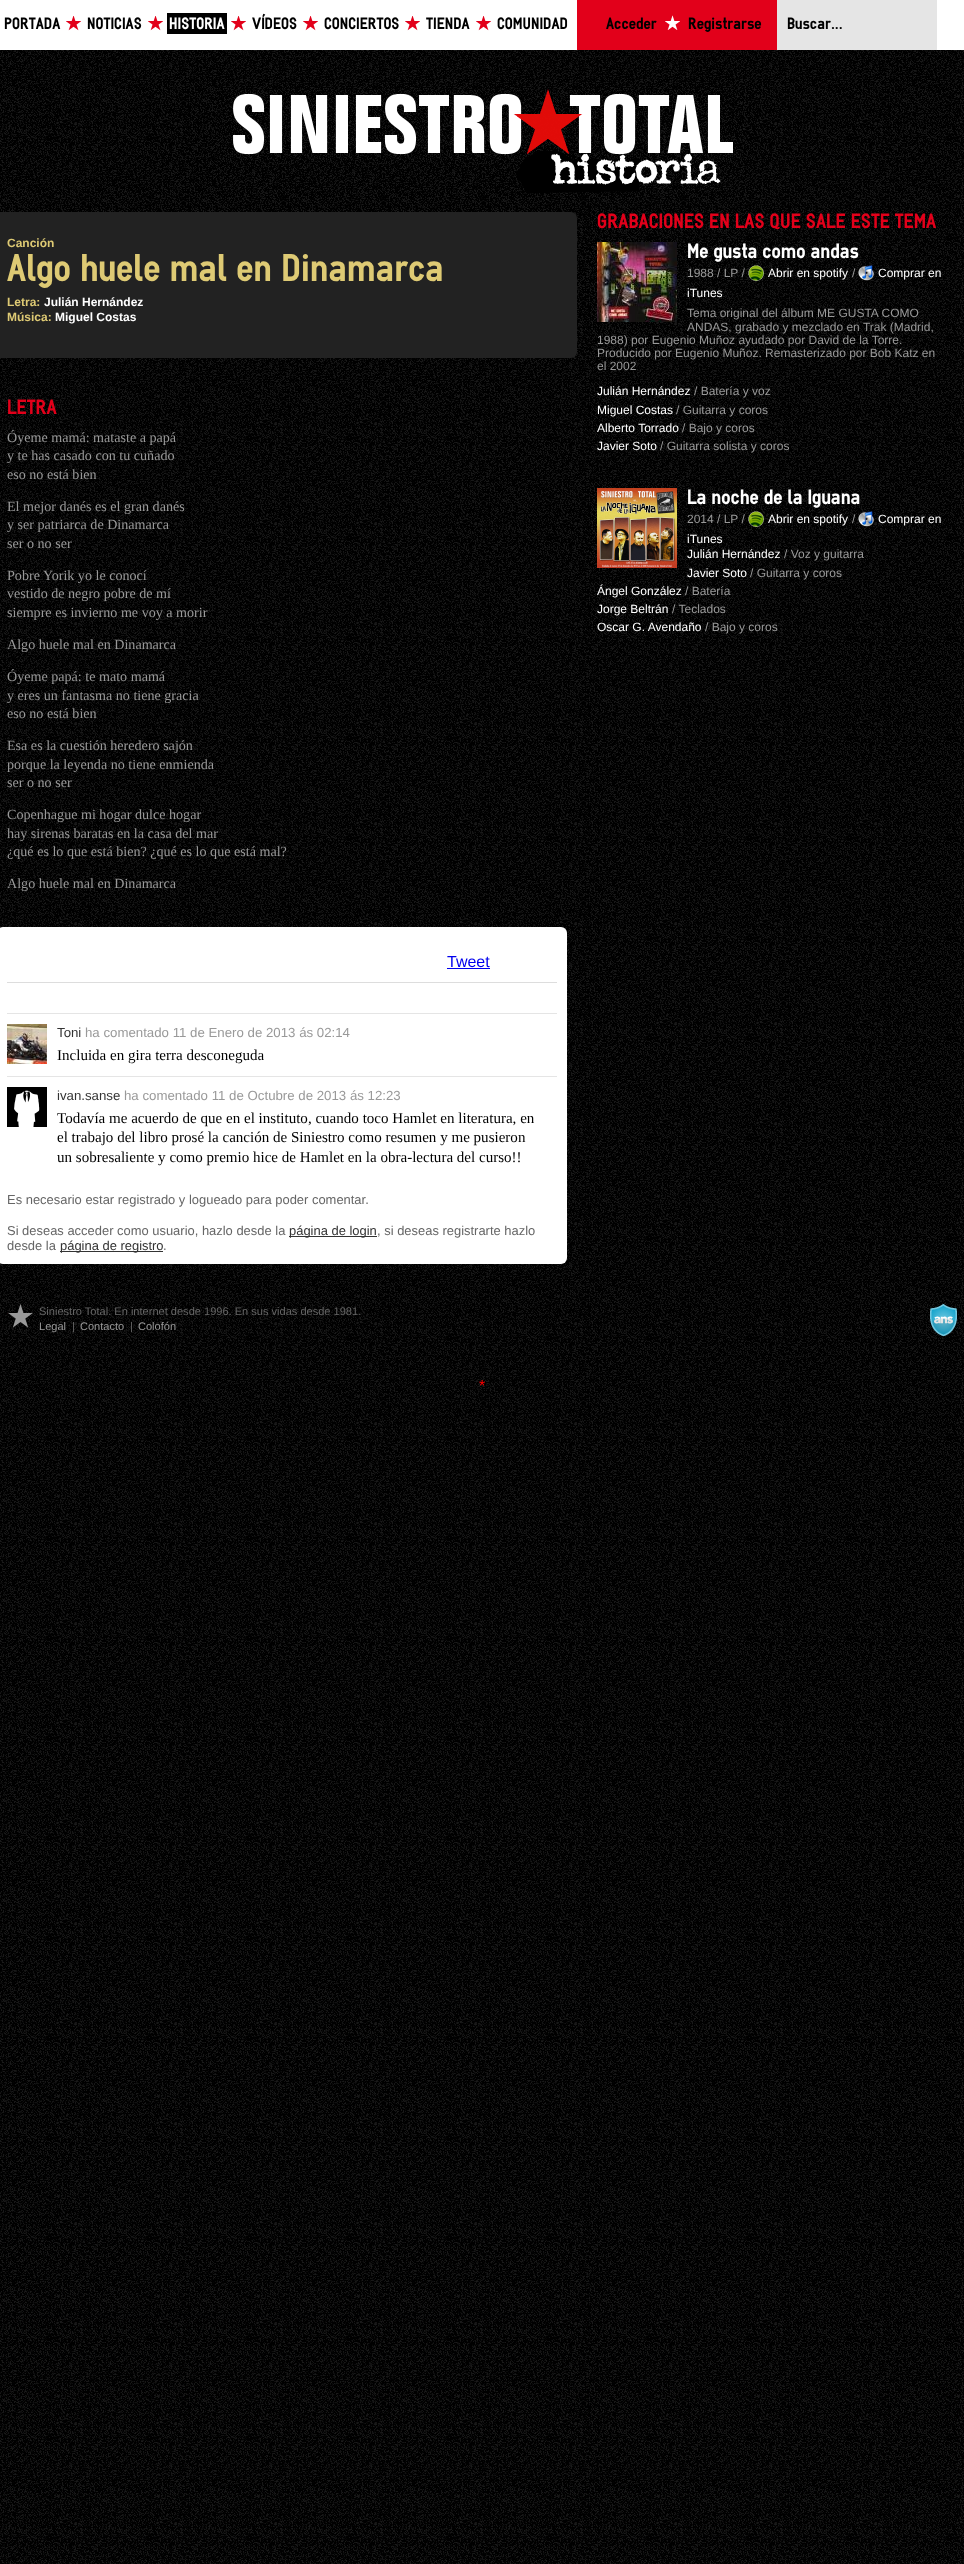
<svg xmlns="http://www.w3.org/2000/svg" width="964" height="2564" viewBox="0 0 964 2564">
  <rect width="100%" height="100%" fill="rgb(255,255,255)"/>
  <image x="0" y="50" width="964" height="2514" href="pic1.png"/>
  <image x="66" y="16" width="15" height="15" href="pic2.png"/>
  <text x="4" y="29" font-family="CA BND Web" font-size="16" font-weight="bold" fill="rgb(0,0,0)">PORTADA</text>
  <image x="148" y="16" width="15" height="15" href="pic2.png"/>
  <text x="87" y="29" font-family="CA BND Web" font-size="16" font-weight="bold" fill="rgb(0,0,0)">NOTICIAS</text>
  <image x="231" y="16" width="15" height="15" href="pic2.png"/>
  <rect x="167" y="13" width="60" height="21" fill="rgb(0,0,0)"/>
  <text x="169" y="29" font-family="CA BND Web" font-size="16" font-weight="bold" fill="rgb(255,255,255)">HISTORIA</text>
  <image x="303" y="16" width="15" height="15" href="pic2.png"/>
  <text x="252" y="29" font-family="CA BND Web" font-size="16" font-weight="bold" fill="rgb(0,0,0)">VÍDEOS</text>
  <image x="405" y="16" width="15" height="15" href="pic2.png"/>
  <text x="324" y="29" font-family="CA BND Web" font-size="16" font-weight="bold" fill="rgb(0,0,0)">CONCIERTOS</text>
  <image x="476" y="16" width="15" height="15" href="pic2.png"/>
  <g font-family="CA BND Web" font-size="16" font-weight="bold" fill="rgb(0,0,0)">
    <text x="426" y="29">TIENDA</text>
    <text x="497" y="29">COMUNIDAD</text>
  </g>
  <rect x="577" y="0" width="200" height="50" fill="rgb(226,0,26)"/>
  <image x="665" y="15" width="15" height="15" href="pic3.png"/>
  <g font-family="CA BND Web" font-size="16" font-weight="bold" fill="rgb(0,0,0)">
    <text x="606" y="29">Acceder</text>
    <text x="688" y="29">Registrarse</text>
  </g>
  <rect x="777" y="0" width="160" height="50" fill="rgb(229,229,229)"/>
  <text x="787" y="29" font-family="CA BND Web" font-size="16" font-weight="bold" fill="rgb(0,0,0)">Buscar...</text>
  <image x="215" y="80" width="534" height="117" href="pic4.png"/>
  <rect x="-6" y="212" width="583" height="146" rx="6" fill="rgb(34,34,34)"/>
  <text x="7" y="247" font-family="Liberation Sans" font-size="12" font-weight="bold" fill="rgb(222,202,116)">Canción</text>
  <text x="7" y="281" font-family="CA BND Web" font-size="37.75" font-weight="bold" fill="rgb(222,202,116)">Algo huele mal en Dinamarca</text>
  <text x="7" y="306" font-family="Liberation Sans" font-size="12" font-weight="bold" fill="rgb(222,202,116)">Letra:</text>
  <text x="44" y="306" font-family="Liberation Sans" font-size="12" font-weight="bold" fill="rgb(255,255,255)">Julián Hernández</text>
  <text x="7" y="321" font-family="Liberation Sans" font-size="12" font-weight="bold" fill="rgb(222,202,116)">Música:</text>
  <text x="55" y="321" font-family="Liberation Sans" font-size="12" font-weight="bold" fill="rgb(255,255,255)">Miguel Costas</text>
  <text x="7" y="414" font-family="CA BND Web" font-size="20.2" font-weight="bold" fill="rgb(226,0,26)">LETRA</text>
  <g font-family="Liberation Serif" font-size="14.1" fill="rgb(153,153,153)">
    <text>
      <tspan x="7" y="442">Óyeme mamá: mataste a papá</tspan>
      <tspan x="7" y="460">y te has casado con tu cuñado</tspan>
      <tspan x="7" y="479">eso no está bien</tspan>
    </text>
    <text>
      <tspan x="7" y="511">El mejor danés es el gran danés</tspan>
      <tspan x="7" y="529">y ser patriarca de Dinamarca</tspan>
      <tspan x="7" y="548">ser o no ser</tspan>
    </text>
    <text>
      <tspan x="7" y="580">Pobre Yorik yo le conocí</tspan>
      <tspan x="7" y="598">vestido de negro pobre de mí</tspan>
      <tspan x="7" y="617">siempre es invierno me voy a morir</tspan>
    </text>
    <text x="7" y="649">Algo huele mal en Dinamarca</text>
    <text>
      <tspan x="7" y="681">Óyeme papá: te mato mamá</tspan>
      <tspan x="7" y="700">y eres un fantasma no tiene gracia</tspan>
      <tspan x="7" y="718">eso no está bien</tspan>
    </text>
    <text>
      <tspan x="7" y="750">Esa es la cuestión heredero sajón</tspan>
      <tspan x="7" y="769">porque la leyenda no tiene enmienda</tspan>
      <tspan x="7" y="787">ser o no ser</tspan>
    </text>
    <text>
      <tspan x="7" y="819">Copenhague mi hogar dulce hogar</tspan>
      <tspan x="7" y="838">hay sirenas baratas en la casa del mar</tspan>
      <tspan x="7" y="856">¿qué es lo que está bien? ¿qué es lo que está mal?</tspan>
    </text>
    <text x="7" y="888">Algo huele mal en Dinamarca</text>
  </g>
  <rect x="-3" y="927" width="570" height="337" rx="6" fill="rgb(255,255,255)"/>
  <rect x="7" y="982" width="550" height="1" fill="rgb(221,221,221)"/>
  <text x="447" y="967" font-family="Liberation Sans" font-size="16" fill="rgb(0,0,238)">Tweet</text>
  <rect x="447" y="968" width="43" height="1" fill="rgb(0,0,238)"/>
  <rect x="7" y="1013" width="550" height="1" fill="rgb(229,229,229)"/>
  <image x="7" y="1024" width="40" height="40" href="pic5.png"/>
  <text x="57" y="1037" font-family="Liberation Sans" font-size="13.25" fill="rgb(51,51,51)">Toni</text>
  <text x="85" y="1037" font-family="Liberation Sans" font-size="13.25" fill="rgb(153,153,153)">ha comentado 11 de Enero de 2013 ás 02:14</text>
  <text x="57" y="1060" font-family="Liberation Serif" font-size="15.05" fill="rgb(0,0,0)">Incluida en gira terra desconeguda</text>
  <rect x="7" y="1076" width="550" height="1" fill="rgb(229,229,229)"/>
  <image x="7" y="1087" width="40" height="40" href="pic6.png"/>
  <text x="57" y="1100" font-family="Liberation Sans" font-size="13.25" fill="rgb(51,51,51)">ivan.sanse</text>
  <text x="124" y="1100" font-family="Liberation Sans" font-size="13.25" fill="rgb(153,153,153)">ha comentado 11 de Octubre de 2013 ás 12:23</text>
  <g font-family="Liberation Serif" font-size="15.05" fill="rgb(0,0,0)">
    <text>
      <tspan x="57" y="1123">Todavía me acuerdo de que en el instituto, cuando toco Hamlet en literatura, en</tspan>
      <tspan x="57" y="1142">el trabajo del libro prosé la canción de Siniestro como resumen y me pusieron</tspan>
      <tspan x="57" y="1162">un sobresaliente y como premio hice de Hamlet en la obra-lectura del curso!!</tspan>
    </text>
  </g>
  <g font-family="Liberation Sans" font-size="12.95" fill="rgb(102,102,102)">
    <text x="7" y="1204">Es necesario estar registrado y logueado para poder comentar.</text>
    <text x="7" y="1235">Si deseas acceder como usuario, hazlo desde la</text>
  </g>
  <rect x="289" y="1236" width="88" height="1" fill="rgb(51,51,51)"/>
  <text x="289" y="1235" font-family="Liberation Sans" font-size="12.95" fill="rgb(51,51,51)">página de login</text>
  <g font-family="Liberation Sans" font-size="12.95" fill="rgb(102,102,102)">
    <text x="377" y="1235">, si deseas registrarte hazlo</text>
    <text x="7" y="1250">desde la</text>
  </g>
  <rect x="60" y="1251" width="103" height="1" fill="rgb(51,51,51)"/>
  <text x="60" y="1250" font-family="Liberation Sans" font-size="12.95" fill="rgb(51,51,51)">página de registro</text>
  <text x="163" y="1250" font-family="Liberation Sans" font-size="12.95" fill="rgb(102,102,102)">.</text>
  <text x="597" y="228" font-family="CA BND Web" font-size="20.2" font-weight="bold" fill="rgb(226,0,26)">GRABACIONES EN LAS QUE SALE ESTE TEMA</text>
  <image x="597" y="242" width="80" height="80" href="pic7.png"/>
  <text x="687" y="258" font-family="CA BND Web" font-size="20.2" font-weight="bold" fill="rgb(255,255,255)">Me gusta como andas</text>
  <text x="687" y="277" font-family="Liberation Sans" font-size="12" fill="rgb(153,153,153)">1988 / LP /</text>
  <image x="748" y="265" width="16" height="16" href="pic8.png"/>
  <text x="768" y="277" font-family="Liberation Sans" font-size="12" fill="rgb(255,255,255)">Abrir en spotify</text>
  <text x="852" y="277" font-family="Liberation Sans" font-size="12" fill="rgb(153,153,153)">/</text>
  <image x="858" y="265" width="16" height="16" href="pic9.png"/>
  <g font-family="Liberation Sans" font-size="12" fill="rgb(255,255,255)">
    <text x="878" y="277">Comprar en</text>
    <text x="687" y="297">iTunes</text>
  </g>
  <g font-family="Liberation Sans" font-size="12" fill="rgb(153,153,153)">
    <text>
      <tspan x="687" y="317">Tema original del álbum ME GUSTA COMO</tspan>
      <tspan x="687" y="331">ANDAS, grabado y mezclado en Trak (Madrid,</tspan>
    </text>
    <text>
      <tspan x="597" y="344">1988) por Eugenio Muñoz ayudado por David de la Torre.</tspan>
      <tspan x="597" y="357">Producido por Eugenio Muñoz. Remasterizado por Bob Katz en</tspan>
      <tspan x="597" y="370">el 2002</tspan>
    </text>
  </g>
  <text x="597" y="395" font-family="Liberation Sans" font-size="12" fill="rgb(255,255,255)">Julián Hernández</text>
  <text x="694" y="395" font-family="Liberation Sans" font-size="12" fill="rgb(153,153,153)">/ Batería y voz</text>
  <text x="597" y="414" font-family="Liberation Sans" font-size="12" fill="rgb(255,255,255)">Miguel Costas</text>
  <text x="676" y="414" font-family="Liberation Sans" font-size="12" fill="rgb(153,153,153)">/ Guitarra y coros</text>
  <text x="597" y="432" font-family="Liberation Sans" font-size="12" fill="rgb(255,255,255)">Alberto Torrado</text>
  <text x="682" y="432" font-family="Liberation Sans" font-size="12" fill="rgb(153,153,153)">/ Bajo y coros</text>
  <text x="597" y="450" font-family="Liberation Sans" font-size="12" fill="rgb(255,255,255)">Javier Soto</text>
  <text x="660" y="450" font-family="Liberation Sans" font-size="12" fill="rgb(153,153,153)">/ Guitarra solista y coros</text>
  <image x="597" y="488" width="80" height="80" href="pic10.png"/>
  <text x="687" y="504" font-family="CA BND Web" font-size="20.2" font-weight="bold" fill="rgb(255,255,255)">La noche de la Iguana</text>
  <text x="687" y="523" font-family="Liberation Sans" font-size="12" fill="rgb(153,153,153)">2014 / LP /</text>
  <image x="748" y="511" width="16" height="16" href="pic11.png"/>
  <text x="768" y="523" font-family="Liberation Sans" font-size="12" fill="rgb(255,255,255)">Abrir en spotify</text>
  <text x="852" y="523" font-family="Liberation Sans" font-size="12" fill="rgb(153,153,153)">/</text>
  <image x="858" y="511" width="16" height="16" href="pic12.png"/>
  <g font-family="Liberation Sans" font-size="12" fill="rgb(255,255,255)">
    <text x="878" y="523">Comprar en</text>
    <text>
      <tspan x="687" y="543">iTunes</tspan>
      <tspan x="687" y="558">Julián Hernández</tspan>
    </text>
  </g>
  <text x="784" y="558" font-family="Liberation Sans" font-size="12" fill="rgb(153,153,153)">/ Voz y guitarra</text>
  <text x="687" y="577" font-family="Liberation Sans" font-size="12" fill="rgb(255,255,255)">Javier Soto</text>
  <text x="750" y="577" font-family="Liberation Sans" font-size="12" fill="rgb(153,153,153)">/ Guitarra y coros</text>
  <text x="597" y="595" font-family="Liberation Sans" font-size="12" fill="rgb(255,255,255)">Ángel González</text>
  <text x="685" y="595" font-family="Liberation Sans" font-size="12" fill="rgb(153,153,153)">/ Batería</text>
  <text x="597" y="613" font-family="Liberation Sans" font-size="12" fill="rgb(255,255,255)">Jorge Beltrán</text>
  <text x="672" y="613" font-family="Liberation Sans" font-size="12" fill="rgb(153,153,153)">/ Teclados</text>
  <text x="597" y="631" font-family="Liberation Sans" font-size="12" fill="rgb(255,255,255)">Oscar G. Avendaño</text>
  <text x="705" y="631" font-family="Liberation Sans" font-size="12" fill="rgb(153,153,153)">/ Bajo y coros</text>
  <image x="7" y="1304" width="26" height="24" href="pic13.png"/>
  <text x="39" y="1315" font-family="Liberation Sans" font-size="11.05" fill="rgb(102,102,102)">Siniestro Total. En internet desde 1996. En sus vidas desde 1981.</text>
  <text x="39" y="1330" font-family="Liberation Sans" font-size="11.05" fill="rgb(153,153,153)">Legal</text>
  <text x="72" y="1330" font-family="Liberation Sans" font-size="11.05" fill="rgb(102,102,102)">|</text>
  <text x="80" y="1330" font-family="Liberation Sans" font-size="11.05" fill="rgb(153,153,153)">Contacto</text>
  <text x="130" y="1330" font-family="Liberation Sans" font-size="11.05" fill="rgb(102,102,102)">|</text>
  <text x="138" y="1330" font-family="Liberation Sans" font-size="11.05" fill="rgb(153,153,153)">Colofón</text>
  <image x="930" y="1304" width="27" height="32" href="pic14.png"/>
  <text x="479" y="1391" font-family="Liberation Sans" font-size="16" fill="rgb(255,0,0)">*</text>
</svg>
